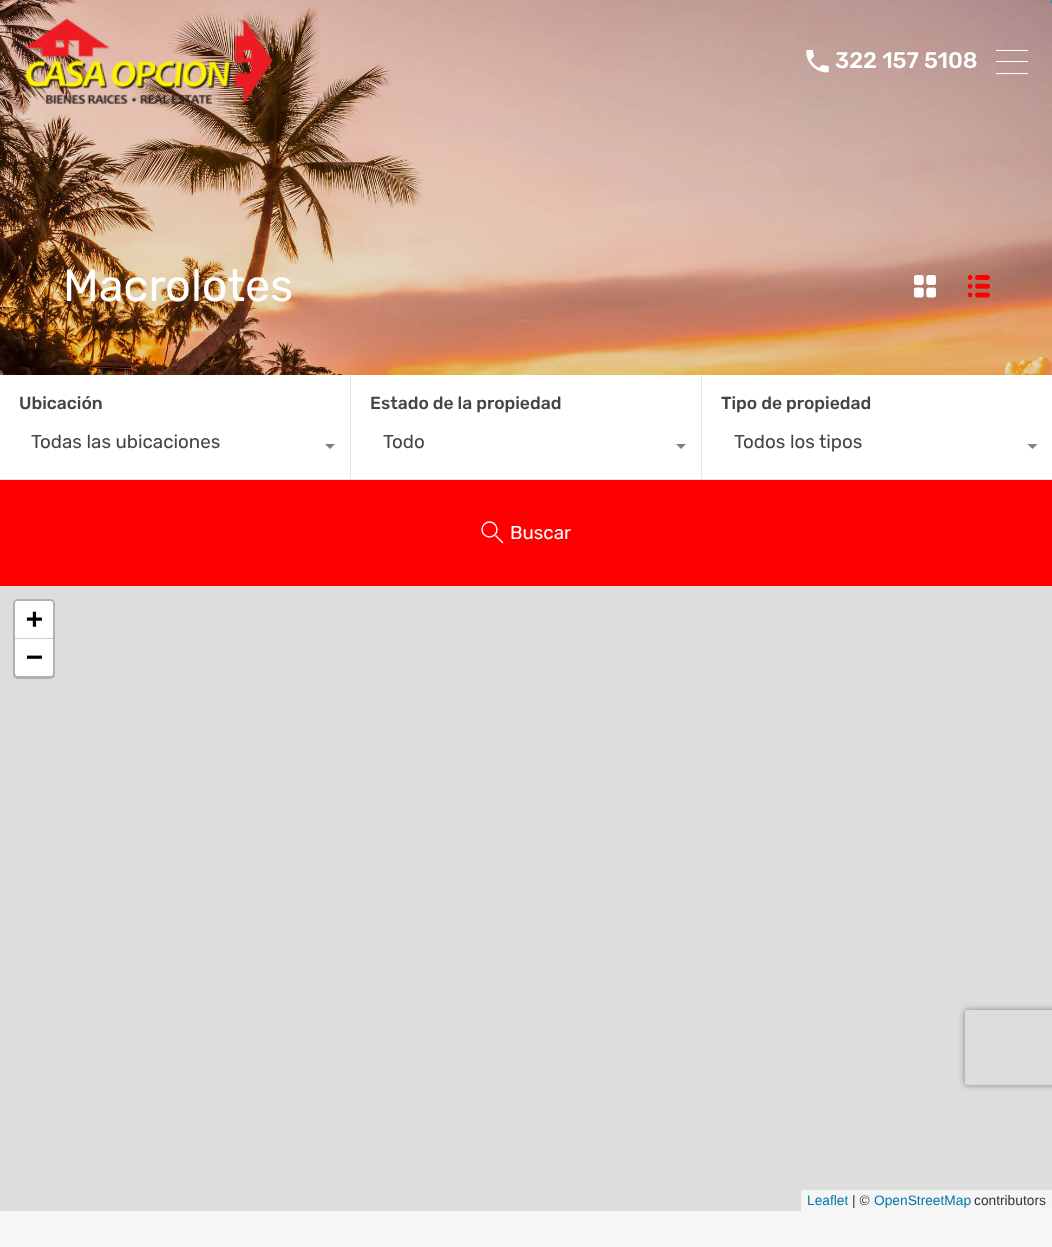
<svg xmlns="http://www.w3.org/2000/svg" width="1052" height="1247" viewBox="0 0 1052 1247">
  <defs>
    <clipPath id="clip1"><path d="M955 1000H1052V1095H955ZM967.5 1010H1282.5C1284 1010 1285 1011 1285 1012.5V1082.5C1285 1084 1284 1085 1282.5 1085H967.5C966 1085 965 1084 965 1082.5V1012.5C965 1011 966 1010 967.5 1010Z" clip-rule="evenodd"/></clipPath>
  </defs>
  <rect width="100%" height="100%" fill="rgb(247,247,247)"/>
  <image x="0" y="0" width="1052" height="375" href="pic3.png"/>
  <path d="M1050.5 1.5H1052.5" fill="none" stroke="rgb(30,166,154)" stroke-width="3.2"/>
  <image x="25" y="18" width="248" height="86" href="pic1.png"/>
  <image x="806" y="50" width="23" height="23" href="pic2.png"/>
  <text x="835" y="68" font-family="Rubik" font-size="22.5" font-weight="500" fill="rgb(255,255,255)">322 157 5108</text>
  <rect x="996" y="61" width="32" height="1" rx="0.5" fill="rgb(255,255,255)"/>
  <rect x="996" y="50" width="32" height="1" rx="0.5" fill="rgb(255,255,255)"/>
  <rect x="996" y="73" width="32" height="1" rx="0.5" fill="rgb(255,255,255)"/>
  <text x="63" y="301" font-family="Rubik" font-size="45" fill="rgb(255,255,255)">Macrolotes</text>
  <image x="914" y="275" width="22" height="23" href="pic4.png"/>
  <image x="968" y="275" width="22" height="23" href="pic5.png"/>
  <rect x="0" y="375" width="1052" height="105" fill="rgb(255,255,255)"/>
  <path d="M351 375V480L350 479V375Z" fill="rgb(230,230,230)"/>
  <path d="M351 480H0V479H350Z" fill="rgba(128,128,128,0.2)"/>
  <text x="19" y="409" font-family="Rubik" font-size="17.5" font-weight="500" fill="rgb(68,68,68)">Ubicación</text>
  <text x="31" y="448" font-family="Rubik" font-size="18.75" fill="rgb(68,68,68)">Todas las ubicaciones</text>
  <path d="M325 444H335L330 449Z" fill="rgb(128,128,128)"/>
  <path d="M702 375V480L701 479V375Z" fill="rgb(230,230,230)"/>
  <path d="M702 480H351V479H701Z" fill="rgba(128,128,128,0.2)"/>
  <text x="370" y="409" font-family="Rubik" font-size="17.5" font-weight="500" fill="rgb(68,68,68)">Estado de la propiedad</text>
  <text x="383" y="448" font-family="Rubik" font-size="18.75" fill="rgb(68,68,68)">Todo</text>
  <path d="M676 444H686L681 449Z" fill="rgb(128,128,128)"/>
  <path d="M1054 480H702V479H1052Z" fill="rgb(230,230,230)"/>
  <text x="721" y="409" font-family="Rubik" font-size="17.5" font-weight="500" fill="rgb(68,68,68)">Tipo de propiedad</text>
  <text x="734" y="448" font-family="Rubik" font-size="18.75" fill="rgb(68,68,68)">Todos los tipos</text>
  <path d="M1027.5 444H1037.5L1032.5 449Z" fill="rgb(128,128,128)"/>
  <rect x="0" y="480" width="1052" height="106" fill="rgb(255,0,0)"/>
  <circle cx="489.5" cy="529.5" r="7.5" fill="none" stroke="rgb(255,255,255)" stroke-width="1.4"/>
  <path d="M495.5 535.5L503 543" fill="none" stroke="rgb(255,255,255)" stroke-width="1.4" stroke-linejoin="round"/>
  <text x="510" y="539" font-family="Rubik" font-size="18.75" fill="rgb(255,255,255)">Buscar</text>
  <rect x="0" y="586" width="1052" height="625" fill="rgb(221,221,221)"/>
  <rect x="14.5" y="600.5" width="39" height="77" rx="3.5" fill="none" stroke="rgb(177,177,177)" stroke-width="3"/>
  <path d="M17.5 601H50.5C52 601 53 602 53 603.5V638H15V603.5C15 602 16 601 17.5 601Z" fill="rgb(255,255,255)"/>
  <rect x="15" y="638" width="38" height="1" fill="rgb(204,204,204)"/>
  <text x="26" y="628" font-family="DejaVu Sans Mono" font-size="28" font-weight="bold" fill="rgb(0,0,0)">+</text>
  <path d="M15 639H53V673.5C53 675 52 676 50.5 676H17.5C16 676 15 675 15 673.5Z" fill="rgb(255,255,255)"/>
  <text x="26" y="666" font-family="DejaVu Sans Mono" font-size="28" font-weight="bold" fill="rgb(0,0,0)">−</text>
  <rect x="801" y="1190" width="251" height="21" fill="rgb(245,245,245)"/>
  <text x="807" y="1205" font-family="Liberation Sans" font-size="13.75" fill="rgb(0,120,168)">Leaflet</text>
  <text x="852" y="1205" font-family="Liberation Sans" font-size="13.75" fill="rgb(51,51,51)">| ©</text>
  <text x="874" y="1205" font-family="Liberation Sans" font-size="13.75" fill="rgb(0,120,168)">OpenStreetMap</text>
  <text x="974" y="1205" font-family="Liberation Sans" font-size="13.75" fill="rgb(51,51,51)">contributors</text>
  <g clip-path="url(#clip1)">
    <rect x="965" y="1010" width="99" height="75" rx="2.5" fill="rgb(128,128,128)" filter="blur(3px)"/>
  </g>
</svg>
